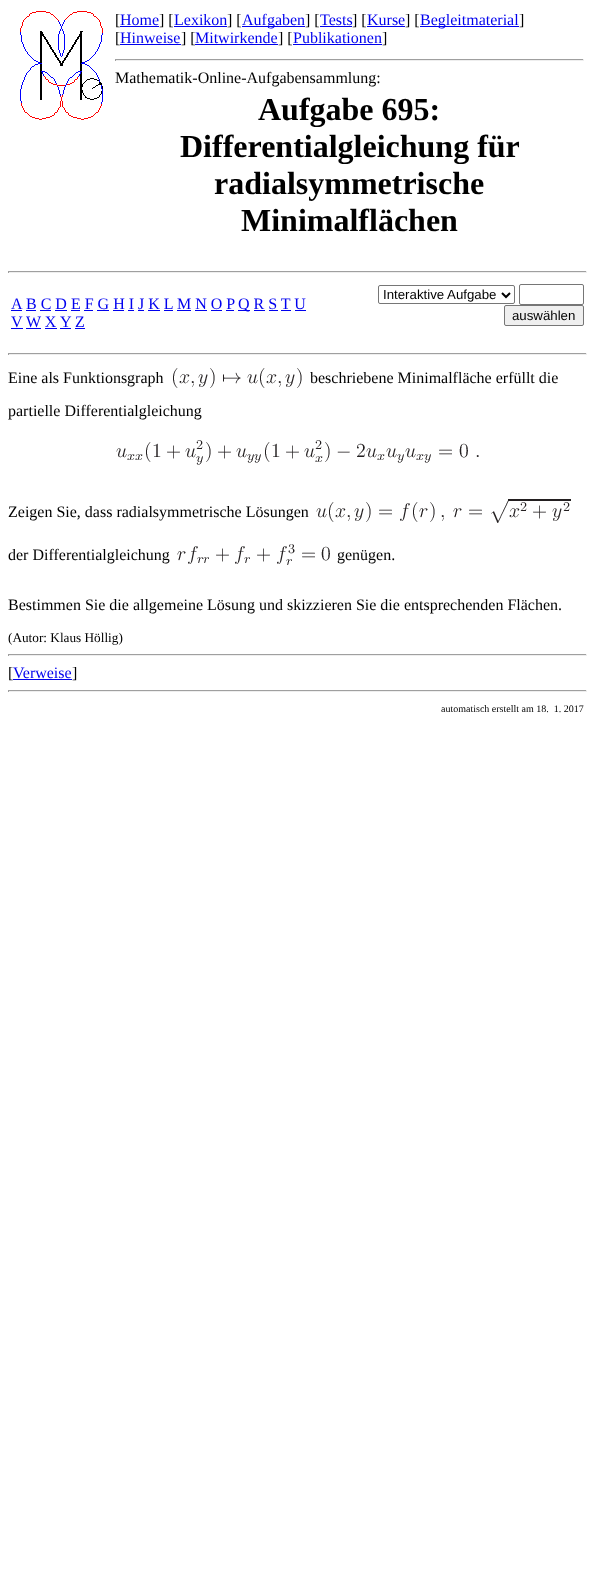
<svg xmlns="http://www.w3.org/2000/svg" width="595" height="1587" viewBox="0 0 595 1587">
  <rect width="100%" height="100%" fill="rgb(255,255,255)"/>
  <image x="20" y="11" width="83" height="109" href="pic1.png"/>
  <text x="115" y="25" font-family="Liberation Serif" font-size="16" fill="rgb(0,0,0)">[</text>
  <text x="120" y="25" font-family="Liberation Serif" font-size="16" fill="rgb(0,0,238)">Home</text>
  <rect x="120" y="26" width="39" height="1" fill="rgb(0,0,238)"/>
  <text x="159" y="25" font-family="Liberation Serif" font-size="16" fill="rgb(0,0,0)">] [</text>
  <text x="174" y="25" font-family="Liberation Serif" font-size="16" fill="rgb(0,0,238)">Lexikon</text>
  <rect x="174" y="26" width="53" height="1" fill="rgb(0,0,238)"/>
  <text x="227" y="25" font-family="Liberation Serif" font-size="16" fill="rgb(0,0,0)">] [</text>
  <rect x="242" y="26" width="63" height="1" fill="rgb(0,0,238)"/>
  <text x="242" y="25" font-family="Liberation Serif" font-size="16" fill="rgb(0,0,238)">Aufgaben</text>
  <text x="305" y="25" font-family="Liberation Serif" font-size="16" fill="rgb(0,0,0)">] [</text>
  <text x="320" y="25" font-family="Liberation Serif" font-size="16" fill="rgb(0,0,238)">Tests</text>
  <rect x="320" y="26" width="32" height="1" fill="rgb(0,0,238)"/>
  <text x="352" y="25" font-family="Liberation Serif" font-size="16" fill="rgb(0,0,0)">] [</text>
  <text x="367" y="25" font-family="Liberation Serif" font-size="16" fill="rgb(0,0,238)">Kurse</text>
  <rect x="367" y="26" width="38" height="1" fill="rgb(0,0,238)"/>
  <text x="405" y="25" font-family="Liberation Serif" font-size="16" fill="rgb(0,0,0)">] [</text>
  <rect x="420" y="26" width="99" height="1" fill="rgb(0,0,238)"/>
  <text x="420" y="25" font-family="Liberation Serif" font-size="16" fill="rgb(0,0,238)">Begleitmaterial</text>
  <g font-family="Liberation Serif" font-size="16" fill="rgb(0,0,0)">
    <text x="519" y="25">]</text>
    <text x="115" y="43">[</text>
  </g>
  <text x="120" y="43" font-family="Liberation Serif" font-size="16" fill="rgb(0,0,238)">Hinweise</text>
  <rect x="120" y="44" width="61" height="1" fill="rgb(0,0,238)"/>
  <text x="181" y="43" font-family="Liberation Serif" font-size="16" fill="rgb(0,0,0)">] [</text>
  <text x="195" y="43" font-family="Liberation Serif" font-size="16" fill="rgb(0,0,238)">Mitwirkende</text>
  <rect x="195" y="44" width="83" height="1" fill="rgb(0,0,238)"/>
  <text x="278" y="43" font-family="Liberation Serif" font-size="16" fill="rgb(0,0,0)">] [</text>
  <text x="293" y="43" font-family="Liberation Serif" font-size="16" fill="rgb(0,0,238)">Publikationen</text>
  <rect x="293" y="44" width="89" height="1" fill="rgb(0,0,238)"/>
  <text x="382" y="43" font-family="Liberation Serif" font-size="16" fill="rgb(0,0,0)">]</text>
  <rect x="115" y="59" width="469" height="1" fill="rgb(159,159,159)"/>
  <rect x="583" y="59" width="1" height="2" fill="rgb(238,238,238)"/>
  <rect x="115" y="60" width="469" height="1" fill="rgb(238,238,238)"/>
  <rect x="115" y="59" width="1" height="2" fill="rgb(159,159,159)"/>
  <text x="115" y="83" font-family="Liberation Serif" font-size="16" fill="rgb(0,0,0)">Mathematik-Online-Aufgabensammlung:</text>
  <g font-family="Liberation Serif" font-size="32" font-weight="bold" fill="rgb(0,0,0)">
    <text x="258" y="120">Aufgabe 695:</text>
    <text x="180" y="157">Differentialgleichung für</text>
    <text x="214" y="194">radialsymmetrische</text>
    <text x="241" y="231">Minimalflächen</text>
  </g>
  <rect x="8" y="271" width="579" height="1" fill="rgb(159,159,159)"/>
  <rect x="586" y="271" width="1" height="2" fill="rgb(238,238,238)"/>
  <rect x="8" y="272" width="579" height="1" fill="rgb(238,238,238)"/>
  <rect x="8" y="271" width="1" height="2" fill="rgb(159,159,159)"/>
  <text x="11" y="309" font-family="Liberation Serif" font-size="16" fill="rgb(0,0,238)">A</text>
  <rect x="11" y="310" width="11" height="1" fill="rgb(0,0,238)"/>
  <text x="26" y="309" font-family="Liberation Serif" font-size="16" fill="rgb(0,0,238)">B C D E F G H I J K L</text>
  <rect x="26" y="310" width="10" height="1" fill="rgb(0,0,238)"/>
  <text x="177" y="309" font-family="Liberation Serif" font-size="16" fill="rgb(0,0,238)">M N O P</text>
  <rect x="177" y="310" width="14" height="1" fill="rgb(0,0,238)"/>
  <rect x="238" y="310" width="12" height="1" fill="rgb(0,0,238)"/>
  <text x="238" y="309" font-family="Liberation Serif" font-size="16" fill="rgb(0,0,238)">Q R S T U</text>
  <rect x="40" y="310" width="11" height="1" fill="rgb(0,0,238)"/>
  <rect x="55" y="310" width="12" height="1" fill="rgb(0,0,238)"/>
  <rect x="71" y="310" width="9" height="1" fill="rgb(0,0,238)"/>
  <rect x="84" y="310" width="9" height="1" fill="rgb(0,0,238)"/>
  <rect x="97" y="310" width="12" height="1" fill="rgb(0,0,238)"/>
  <rect x="113" y="310" width="11" height="1" fill="rgb(0,0,238)"/>
  <rect x="128" y="310" width="6" height="1" fill="rgb(0,0,238)"/>
  <rect x="138" y="310" width="6" height="1" fill="rgb(0,0,238)"/>
  <rect x="148" y="310" width="12" height="1" fill="rgb(0,0,238)"/>
  <rect x="164" y="310" width="9" height="1" fill="rgb(0,0,238)"/>
  <rect x="195" y="310" width="12" height="1" fill="rgb(0,0,238)"/>
  <rect x="211" y="310" width="11" height="1" fill="rgb(0,0,238)"/>
  <rect x="226" y="310" width="8" height="1" fill="rgb(0,0,238)"/>
  <rect x="254" y="310" width="11" height="1" fill="rgb(0,0,238)"/>
  <rect x="269" y="310" width="9" height="1" fill="rgb(0,0,238)"/>
  <rect x="281" y="310" width="10" height="1" fill="rgb(0,0,238)"/>
  <rect x="295" y="310" width="11" height="1" fill="rgb(0,0,238)"/>
  <text x="11" y="327" font-family="Liberation Serif" font-size="16" fill="rgb(0,0,238)">V W X</text>
  <rect x="11" y="328" width="12" height="1" fill="rgb(0,0,238)"/>
  <text x="60" y="327" font-family="Liberation Serif" font-size="16" fill="rgb(0,0,238)">Y</text>
  <rect x="60" y="328" width="11" height="1" fill="rgb(0,0,238)"/>
  <text x="75" y="327" font-family="Liberation Serif" font-size="16" fill="rgb(0,0,238)">Z</text>
  <rect x="75" y="328" width="10" height="1" fill="rgb(0,0,238)"/>
  <rect x="26" y="328" width="15" height="1" fill="rgb(0,0,238)"/>
  <rect x="45" y="328" width="12" height="1" fill="rgb(0,0,238)"/>
  <rect x="378.5" y="285.5" width="136" height="18" rx="1.5" fill="none" stroke="rgb(118,118,118)"/>
  <path d="M502 293L506 297L510 293" fill="none" stroke="rgb(0,0,0)" stroke-width="2"/>
  <text x="383" y="299" font-family="Liberation Sans" font-size="13.25" fill="rgb(0,0,0)">Interaktive Aufgabe</text>
  <rect x="519.5" y="284.5" width="64" height="20" rx="1.5" fill="none" stroke="rgb(118,118,118)"/>
  <rect x="504.5" y="305.5" width="79" height="20" rx="1.5" fill="rgb(239,239,239)" stroke="rgb(118,118,118)"/>
  <text x="512" y="320" font-family="Liberation Sans" font-size="13.25" fill="rgb(0,0,0)">auswählen</text>
  <rect x="8" y="353" width="579" height="1" fill="rgb(159,159,159)"/>
  <rect x="586" y="353" width="1" height="2" fill="rgb(238,238,238)"/>
  <rect x="8" y="354" width="579" height="1" fill="rgb(238,238,238)"/>
  <rect x="8" y="353" width="1" height="2" fill="rgb(159,159,159)"/>
  <text x="8" y="383" font-family="Liberation Serif" font-size="16" fill="rgb(0,0,0)">Eine als Funktionsgraph</text>
  <image x="173" y="368" width="129" height="20" href="pic2.png"/>
  <g font-family="Liberation Serif" font-size="16" fill="rgb(0,0,0)">
    <text x="310" y="383">beschriebene Minimalfläche erfüllt die</text>
    <text x="8" y="416">partielle Differentialgleichung</text>
  </g>
  <image x="116" y="440" width="363" height="25" href="pic3.png"/>
  <text x="8" y="517" font-family="Liberation Serif" font-size="16" fill="rgb(0,0,0)">Zeigen Sie, dass radialsymmetrische Lösungen</text>
  <image x="316" y="499" width="255" height="24" href="pic4.png"/>
  <text x="8" y="560" font-family="Liberation Serif" font-size="16" fill="rgb(0,0,0)">der Differentialgleichung</text>
  <image x="177" y="544" width="153" height="21" href="pic5.png"/>
  <g font-family="Liberation Serif" font-size="16" fill="rgb(0,0,0)">
    <text x="337" y="560">genügen.</text>
    <text x="8" y="610">Bestimmen Sie die allgemeine Lösung und skizzieren Sie die entsprechenden Flächen.</text>
  </g>
  <text x="8" y="642" font-family="Liberation Serif" font-size="13.25" fill="rgb(0,0,0)">(Autor: Klaus Höllig)</text>
  <rect x="8" y="654" width="579" height="1" fill="rgb(159,159,159)"/>
  <rect x="586" y="654" width="1" height="2" fill="rgb(238,238,238)"/>
  <rect x="8" y="655" width="579" height="1" fill="rgb(238,238,238)"/>
  <rect x="8" y="654" width="1" height="2" fill="rgb(159,159,159)"/>
  <text x="8" y="678" font-family="Liberation Serif" font-size="16" fill="rgb(0,0,0)">[</text>
  <text x="13" y="678" font-family="Liberation Serif" font-size="16" fill="rgb(0,0,238)">Verweise</text>
  <rect x="13" y="679" width="59" height="1" fill="rgb(0,0,238)"/>
  <text x="72" y="678" font-family="Liberation Serif" font-size="16" fill="rgb(0,0,0)">]</text>
  <rect x="8" y="690" width="579" height="1" fill="rgb(159,159,159)"/>
  <rect x="586" y="690" width="1" height="2" fill="rgb(238,238,238)"/>
  <rect x="8" y="691" width="579" height="1" fill="rgb(238,238,238)"/>
  <rect x="8" y="690" width="1" height="2" fill="rgb(159,159,159)"/>
  <text x="441" y="712" font-family="Liberation Serif" font-size="10" fill="rgb(0,0,0)" xml:space="preserve">automatisch erstellt am 18.  1. 2017</text>
</svg>
